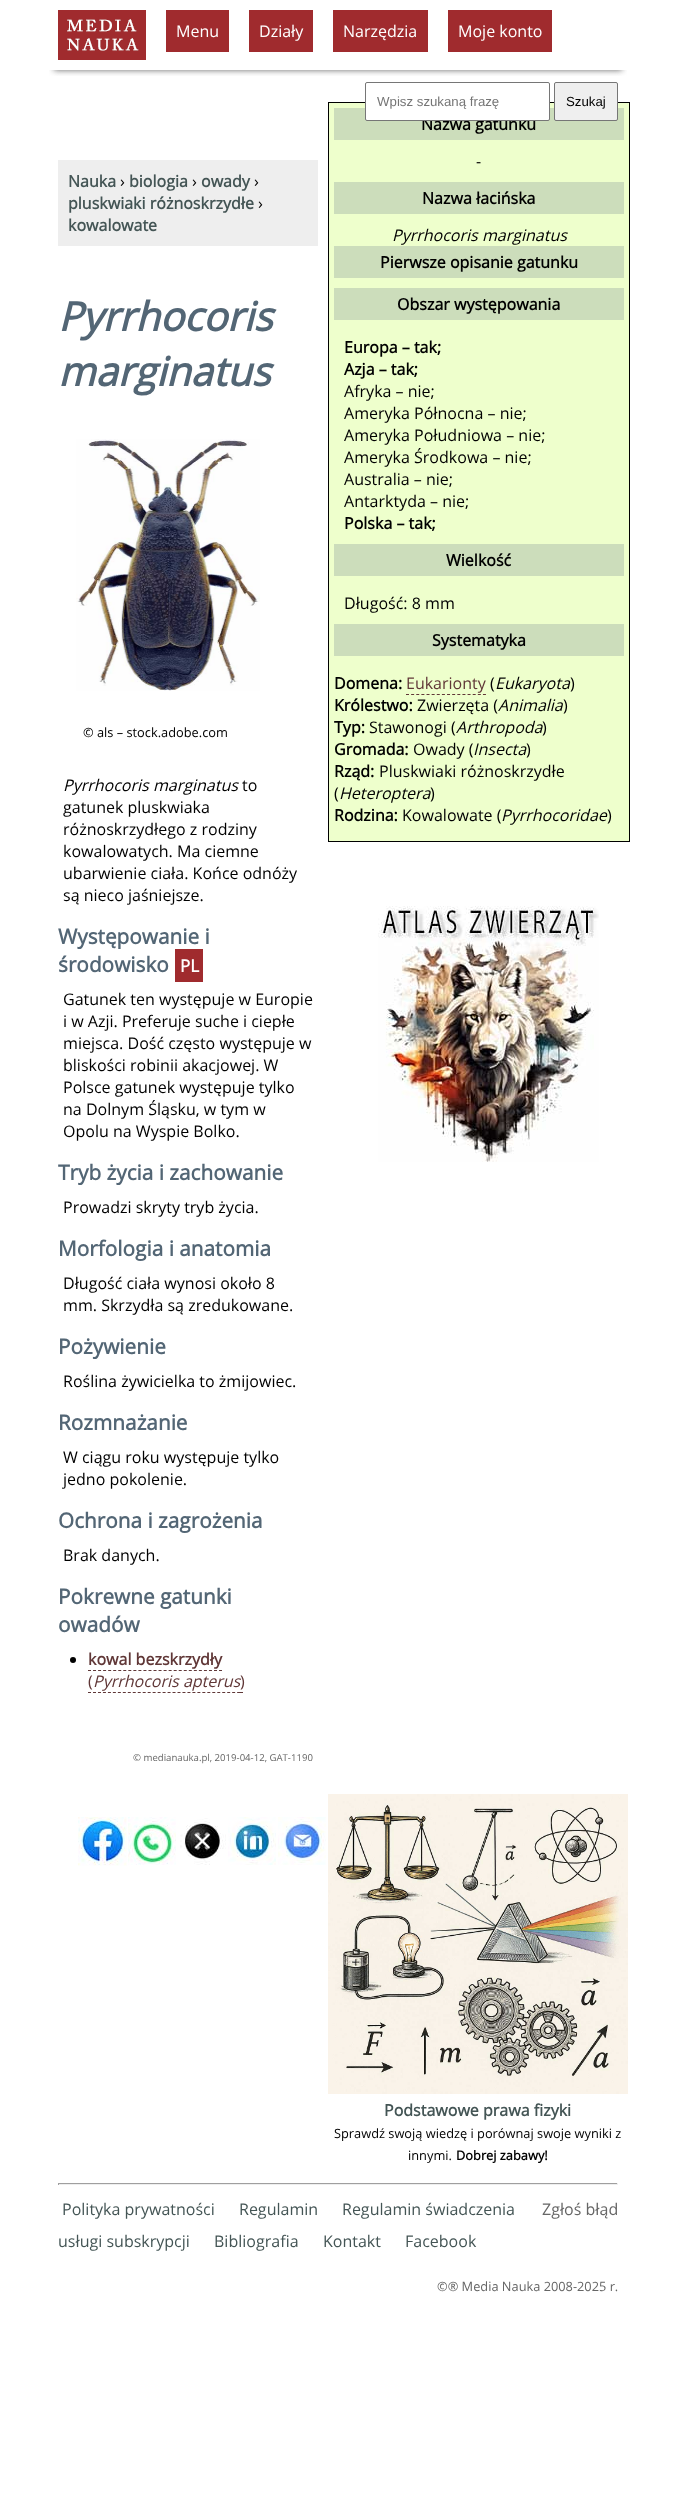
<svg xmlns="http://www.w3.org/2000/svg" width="676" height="2498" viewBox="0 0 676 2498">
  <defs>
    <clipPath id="clip1"><rect x="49" y="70" width="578" height="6"/></clipPath>
  </defs>
  <rect width="100%" height="100%" fill="rgb(255,255,255)"/>
  <g clip-path="url(#clip1)">
    <rect x="54" y="12" width="568" height="58" fill="rgb(102,102,102)" filter="blur(3px)"/>
  </g>
  <image x="58" y="10" width="88" height="50" href="pic1.png"/>
  <rect x="166" y="10" width="63" height="42" fill="rgb(160,43,46)"/>
  <text x="176" y="37" font-family="Open Sans" font-size="16" fill="rgb(255,255,255)">Menu</text>
  <rect x="249" y="10" width="64" height="42" fill="rgb(160,43,46)"/>
  <text x="259" y="37" font-family="Open Sans" font-size="16" fill="rgb(255,255,255)">Działy</text>
  <rect x="333" y="10" width="95" height="42" fill="rgb(160,43,46)"/>
  <text x="343" y="37" font-family="Open Sans" font-size="16" fill="rgb(255,255,255)">Narzędzia</text>
  <rect x="448" y="10" width="104" height="42" fill="rgb(160,43,46)"/>
  <text x="458" y="37" font-family="Open Sans" font-size="16" fill="rgb(255,255,255)">Moje konto</text>
  <rect x="328.5" y="102.5" width="301" height="739" fill="rgb(238,255,204)" stroke="rgb(0,0,0)"/>
  <rect x="334" y="108" width="290" height="32" fill="rgb(204,221,187)"/>
  <text x="421" y="130" font-family="Open Sans" font-size="16" font-weight="bold" fill="rgb(0,0,0)">Nazwa gatunku</text>
  <rect x="365.5" y="82.5" width="184" height="38" rx="1.5" fill="rgb(255,255,255)" stroke="rgb(118,118,118)"/>
  <text x="377" y="106" font-family="Liberation Sans" font-size="13.25" fill="rgb(117,117,117)">Wpisz szukaną frazę</text>
  <rect x="554.5" y="82.5" width="63" height="38" rx="1.5" fill="rgb(239,239,239)" stroke="rgb(118,118,118)"/>
  <text x="566" y="106" font-family="Liberation Sans" font-size="13.25" fill="rgb(0,0,0)">Szukaj</text>
  <rect x="58" y="160" width="260" height="86" fill="rgb(238,238,238)"/>
  <text x="68" y="187" font-family="Open Sans" font-size="16" font-weight="bold" fill="rgb(68,85,85)">Nauka</text>
  <text x="120" y="187" font-family="Open Sans" font-size="16" fill="rgb(0,0,0)">›</text>
  <text x="129" y="187" font-family="Open Sans" font-size="16" font-weight="bold" fill="rgb(68,85,85)">biologia</text>
  <text x="192" y="187" font-family="Open Sans" font-size="16" fill="rgb(0,0,0)">›</text>
  <text x="201" y="187" font-family="Open Sans" font-size="16" font-weight="bold" fill="rgb(68,85,85)">owady</text>
  <text x="254" y="187" font-family="Open Sans" font-size="16" fill="rgb(0,0,0)">›</text>
  <text x="68" y="209" font-family="Open Sans" font-size="16" font-weight="bold" fill="rgb(68,85,85)">pluskwiaki różnoskrzydłe</text>
  <text x="258" y="209" font-family="Open Sans" font-size="16" fill="rgb(0,0,0)">›</text>
  <text x="68" y="231" font-family="Open Sans" font-size="16" font-weight="bold" fill="rgb(68,85,85)">kowalowate</text>
  <g font-family="Open Sans" font-size="40" font-weight="bold" font-style="italic" fill="rgb(83,102,117)">
    <text>
      <tspan x="58" y="331">Pyrrhocoris</tspan>
      <tspan x="58" y="386">marginatus</tspan>
    </text>
  </g>
  <image x="76" y="439" width="184" height="252" href="pic2.png"/>
  <text x="83" y="737" font-family="Open Sans" font-size="12.8" fill="rgb(0,0,0)">© als – stock.adobe.com</text>
  <text x="63" y="791" font-family="Open Sans" font-size="16" font-style="italic" fill="rgb(0,0,0)">Pyrrhocoris marginatus</text>
  <g font-family="Open Sans" font-size="16" fill="rgb(0,0,0)">
    <text x="242" y="791">to</text>
    <text>
      <tspan x="63" y="813">gatunek pluskwiaka</tspan>
      <tspan x="63" y="835">różnoskrzydłego z rodziny</tspan>
      <tspan x="63" y="857">kowalowatych. Ma ciemne</tspan>
      <tspan x="63" y="879">ubarwienie ciała. Końce odnóży</tspan>
      <tspan x="63" y="901">są nieco jaśniejsze.</tspan>
    </text>
  </g>
  <g font-family="Open Sans" font-size="20.75" font-weight="bold" fill="rgb(83,102,117)">
    <text>
      <tspan x="58" y="944">Występowanie i</tspan>
      <tspan x="58" y="972">środowisko</tspan>
    </text>
  </g>
  <rect x="175" y="949" width="28" height="33" fill="rgb(160,43,46)"/>
  <text x="180" y="972" font-family="Open Sans" font-size="17" font-weight="bold" fill="rgb(255,255,255)">PL</text>
  <g font-family="Open Sans" font-size="16" fill="rgb(0,0,0)">
    <text>
      <tspan x="63" y="1005">Gatunek ten występuje w Europie</tspan>
      <tspan x="63" y="1027">i w Azji. Preferuje suche i ciepłe</tspan>
      <tspan x="63" y="1049">miejsca. Dość często występuje w</tspan>
      <tspan x="63" y="1071">bliskości robinii akacjowej. W</tspan>
      <tspan x="63" y="1093">Polsce gatunek występuje tylko</tspan>
      <tspan x="63" y="1115">na Dolnym Śląsku, w tym w</tspan>
      <tspan x="63" y="1137">Opolu na Wyspie Bolko.</tspan>
    </text>
  </g>
  <text x="58" y="1180" font-family="Open Sans" font-size="20.75" font-weight="bold" fill="rgb(83,102,117)">Tryb życia i zachowanie</text>
  <text x="63" y="1213" font-family="Open Sans" font-size="16" fill="rgb(0,0,0)">Prowadzi skryty tryb życia.</text>
  <text x="58" y="1256" font-family="Open Sans" font-size="20.75" font-weight="bold" fill="rgb(83,102,117)">Morfologia i anatomia</text>
  <g font-family="Open Sans" font-size="16" fill="rgb(0,0,0)">
    <text>
      <tspan x="63" y="1289">Długość ciała wynosi około 8</tspan>
      <tspan x="63" y="1311">mm. Skrzydła są zredukowane.</tspan>
    </text>
  </g>
  <text x="58" y="1354" font-family="Open Sans" font-size="20.75" font-weight="bold" fill="rgb(83,102,117)">Pożywienie</text>
  <text x="63" y="1387" font-family="Open Sans" font-size="16" fill="rgb(0,0,0)">Roślina żywicielka to żmijowiec.</text>
  <text x="58" y="1430" font-family="Open Sans" font-size="20.75" font-weight="bold" fill="rgb(83,102,117)">Rozmnażanie</text>
  <g font-family="Open Sans" font-size="16" fill="rgb(0,0,0)">
    <text>
      <tspan x="63" y="1463">W ciągu roku występuje tylko</tspan>
      <tspan x="63" y="1485">jedno pokolenie.</tspan>
    </text>
  </g>
  <text x="58" y="1528" font-family="Open Sans" font-size="20.75" font-weight="bold" fill="rgb(83,102,117)">Ochrona i zagrożenia</text>
  <text x="63" y="1561" font-family="Open Sans" font-size="16" fill="rgb(0,0,0)">Brak danych.</text>
  <g font-family="Open Sans" font-size="20.75" font-weight="bold" fill="rgb(83,102,117)">
    <text>
      <tspan x="58" y="1604">Pokrewne gatunki</tspan>
      <tspan x="58" y="1632">owadów</tspan>
    </text>
  </g>
  <circle cx="73" cy="1660" r="3" fill="rgb(0,0,0)"/>
  <text x="88" y="1665" font-family="Open Sans" font-size="16" font-weight="bold" fill="rgb(96,55,55)">kowal bezskrzydły</text>
  <path d="M88 1670.5H222" fill="none" stroke="rgb(96,55,55)" stroke-dasharray="3 2.04"/>
  <text x="88" y="1687" font-family="Open Sans" font-size="16" fill="rgb(96,55,55)">(</text>
  <path d="M88 1692.5H91" fill="none" stroke="rgb(96,55,55)"/>
  <path d="M93 1692.5H240" fill="none" stroke="rgb(96,55,55)" stroke-dasharray="3 1.97"/>
  <text x="93" y="1687" font-family="Open Sans" font-size="16" font-style="italic" fill="rgb(96,55,55)">Pyrrhocoris apterus</text>
  <path d="M240 1692.5H243" fill="none" stroke="rgb(96,55,55)"/>
  <text x="240" y="1687" font-family="Open Sans" font-size="16" fill="rgb(96,55,55)">)</text>
  <text x="133" y="1761" font-family="Open Sans" font-size="9.6" fill="rgb(102,102,102)">© medianauka.pl, 2019-04-12, GAT-1190</text>
  <image x="78" y="1817" width="49" height="49" href="pic3.png"/>
  <image x="128" y="1817" width="48" height="48" href="pic4.png"/>
  <image x="180" y="1818" width="46" height="47" href="pic5.png"/>
  <image x="228" y="1817" width="48" height="48" href="pic6.png"/>
  <image x="278" y="1817" width="48" height="48" href="pic7.png"/>
  <text x="476" y="167" font-family="Open Sans" font-size="16" fill="rgb(0,0,0)">-</text>
  <rect x="334" y="182" width="290" height="32" fill="rgb(204,221,187)"/>
  <text x="422" y="204" font-family="Open Sans" font-size="16" font-weight="bold" fill="rgb(0,0,0)">Nazwa łacińska</text>
  <text x="392" y="241" font-family="Open Sans" font-size="16" font-style="italic" fill="rgb(0,0,0)">Pyrrhocoris marginatus</text>
  <rect x="334" y="246" width="290" height="32" fill="rgb(204,221,187)"/>
  <text x="380" y="268" font-family="Open Sans" font-size="16" font-weight="bold" fill="rgb(0,0,0)">Pierwsze opisanie gatunku</text>
  <rect x="334" y="288" width="290" height="32" fill="rgb(204,221,187)"/>
  <g font-family="Open Sans" font-size="16" font-weight="bold" fill="rgb(0,0,0)">
    <text x="397" y="310">Obszar występowania</text>
    <text>
      <tspan x="344" y="353">Europa – tak;</tspan>
      <tspan x="344" y="375">Azja – tak;</tspan>
    </text>
  </g>
  <g font-family="Open Sans" font-size="16" fill="rgb(0,0,0)">
    <text>
      <tspan x="344" y="397">Afryka – nie;</tspan>
      <tspan x="344" y="419">Ameryka Północna – nie;</tspan>
      <tspan x="344" y="441">Ameryka Południowa – nie;</tspan>
      <tspan x="344" y="463">Ameryka Środkowa – nie;</tspan>
      <tspan x="344" y="485">Australia – nie;</tspan>
      <tspan x="344" y="507">Antarktyda – nie;</tspan>
    </text>
  </g>
  <text x="344" y="529" font-family="Open Sans" font-size="16" font-weight="bold" fill="rgb(0,0,0)">Polska – tak;</text>
  <rect x="334" y="544" width="290" height="32" fill="rgb(204,221,187)"/>
  <text x="446" y="566" font-family="Open Sans" font-size="16" font-weight="bold" fill="rgb(0,0,0)">Wielkość</text>
  <text x="344" y="609" font-family="Open Sans" font-size="16" fill="rgb(0,0,0)">Długość: 8 mm</text>
  <rect x="334" y="624" width="290" height="32" fill="rgb(204,221,187)"/>
  <g font-family="Open Sans" font-size="16" font-weight="bold" fill="rgb(0,0,0)">
    <text x="432" y="646">Systematyka</text>
    <text x="334" y="689">Domena:</text>
  </g>
  <text x="406" y="689" font-family="Open Sans" font-size="16" fill="rgb(96,55,55)">Eukarionty</text>
  <path d="M406 694.5H486" fill="none" stroke="rgb(96,55,55)" stroke-dasharray="3 2.13"/>
  <text x="490" y="689" font-family="Open Sans" font-size="16" fill="rgb(0,0,0)">(</text>
  <text x="495" y="689" font-family="Open Sans" font-size="16" font-style="italic" fill="rgb(0,0,0)">Eukaryota</text>
  <text x="570" y="689" font-family="Open Sans" font-size="16" fill="rgb(0,0,0)">)</text>
  <text x="334" y="711" font-family="Open Sans" font-size="16" font-weight="bold" fill="rgb(0,0,0)">Królestwo:</text>
  <text x="417" y="711" font-family="Open Sans" font-size="16" fill="rgb(0,0,0)">Zwierzęta (</text>
  <text x="498" y="711" font-family="Open Sans" font-size="16" font-style="italic" fill="rgb(0,0,0)">Animalia</text>
  <text x="563" y="711" font-family="Open Sans" font-size="16" fill="rgb(0,0,0)">)</text>
  <text x="334" y="733" font-family="Open Sans" font-size="16" font-weight="bold" fill="rgb(0,0,0)">Typ:</text>
  <text x="369" y="733" font-family="Open Sans" font-size="16" fill="rgb(0,0,0)">Stawonogi (</text>
  <text x="456" y="733" font-family="Open Sans" font-size="16" font-style="italic" fill="rgb(0,0,0)">Arthropoda</text>
  <text x="542" y="733" font-family="Open Sans" font-size="16" fill="rgb(0,0,0)">)</text>
  <text x="334" y="755" font-family="Open Sans" font-size="16" font-weight="bold" fill="rgb(0,0,0)">Gromada:</text>
  <text x="413" y="755" font-family="Open Sans" font-size="16" fill="rgb(0,0,0)">Owady (</text>
  <text x="473" y="755" font-family="Open Sans" font-size="16" font-style="italic" fill="rgb(0,0,0)">Insecta</text>
  <text x="526" y="755" font-family="Open Sans" font-size="16" fill="rgb(0,0,0)">)</text>
  <text x="334" y="777" font-family="Open Sans" font-size="16" font-weight="bold" fill="rgb(0,0,0)">Rząd:</text>
  <g font-family="Open Sans" font-size="16" fill="rgb(0,0,0)">
    <text x="379" y="777">Pluskwiaki różnoskrzydłe</text>
    <text x="334" y="799">(</text>
  </g>
  <text x="339" y="799" font-family="Open Sans" font-size="16" font-style="italic" fill="rgb(0,0,0)">Heteroptera</text>
  <text x="430" y="799" font-family="Open Sans" font-size="16" fill="rgb(0,0,0)">)</text>
  <text x="334" y="821" font-family="Open Sans" font-size="16" font-weight="bold" fill="rgb(0,0,0)">Rodzina:</text>
  <text x="402" y="821" font-family="Open Sans" font-size="16" fill="rgb(0,0,0)">Kowalowate (</text>
  <text x="501" y="821" font-family="Open Sans" font-size="16" font-style="italic" fill="rgb(0,0,0)">Pyrrhocoridae</text>
  <text x="607" y="821" font-family="Open Sans" font-size="16" fill="rgb(0,0,0)">)</text>
  <image x="378" y="906" width="221" height="256" href="pic8.png"/>
  <image x="328" y="1794" width="300" height="300" href="pic9.png"/>
  <text x="384" y="2116" font-family="Open Sans" font-size="16" font-weight="bold" fill="rgb(68,85,85)">Podstawowe prawa fizyki</text>
  <g font-family="Open Sans" font-size="12.8" fill="rgb(0,0,0)">
    <text x="334" y="2138">Sprawdź swoją wiedzę i porównaj swoje wyniki z</text>
    <text x="408" y="2160">innymi.</text>
  </g>
  <text x="456" y="2160" font-family="Open Sans" font-size="12.8" font-weight="bold" fill="rgb(0,0,0)">Dobrej zabawy!</text>
  <rect x="58" y="2183" width="560" height="1" fill="rgb(159,159,159)"/>
  <rect x="617" y="2183" width="1" height="2" fill="rgb(238,238,238)"/>
  <rect x="58" y="2184" width="560" height="1" fill="rgb(238,238,238)"/>
  <rect x="58" y="2183" width="1" height="2" fill="rgb(159,159,159)"/>
  <g font-family="Open Sans" font-size="16" fill="rgb(68,85,85)">
    <text x="62" y="2215">Polityka prywatności</text>
    <text x="239" y="2215">Regulamin</text>
    <text x="342" y="2215">Regulamin świadczenia</text>
  </g>
  <text x="542" y="2215" font-family="Open Sans" font-size="16" fill="rgb(102,102,102)">Zgłoś błąd</text>
  <g font-family="Open Sans" font-size="16" fill="rgb(68,85,85)">
    <text x="58" y="2247">usługi subskrypcji</text>
    <text x="214" y="2247">Bibliografia</text>
    <text x="323" y="2247">Kontakt</text>
    <text x="405" y="2247">Facebook</text>
  </g>
  <text x="437" y="2291" font-family="Open Sans" font-size="12.8" fill="rgb(102,102,102)">©® Media Nauka 2008-2025 r.</text>
</svg>
